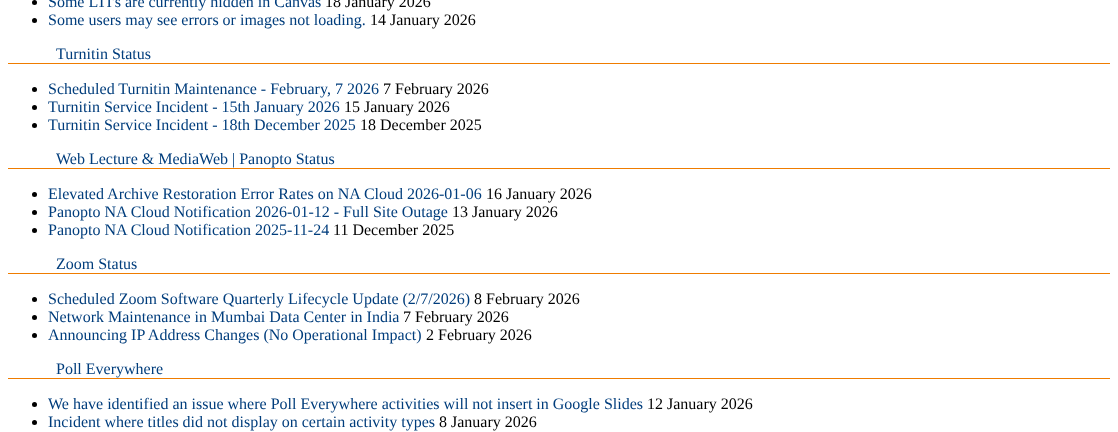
<svg xmlns="http://www.w3.org/2000/svg" width="1118" height="432" viewBox="0 0 1118 432">
  <rect width="100%" height="100%" fill="rgb(255,255,255)"/>
  <circle cx="34.5" cy="2.5" r="2.5" fill="rgb(0,0,0)"/>
  <text x="48" y="7" font-family="Liberation Serif" font-size="16" fill="rgb(0,61,124)">Some LTI's are currently hidden in Canvas</text>
  <text x="325" y="7" font-family="Liberation Serif" font-size="16" fill="rgb(0,0,0)">18 January 2026</text>
  <circle cx="34.5" cy="20.5" r="2.5" fill="rgb(0,0,0)"/>
  <text x="48" y="25" font-family="Liberation Serif" font-size="16" fill="rgb(0,61,124)">Some users may see errors or images not loading.</text>
  <text x="370" y="25" font-family="Liberation Serif" font-size="16" fill="rgb(0,0,0)">14 January 2026</text>
  <rect x="8" y="63" width="1102" height="1" fill="rgb(239,124,0)"/>
  <text x="56" y="59" font-family="Liberation Serif" font-size="16" fill="rgb(0,61,124)">Turnitin Status</text>
  <circle cx="34.5" cy="89.5" r="2.5" fill="rgb(0,0,0)"/>
  <text x="48" y="94" font-family="Liberation Serif" font-size="16" fill="rgb(0,61,124)">Scheduled Turnitin Maintenance - February, 7 2026</text>
  <text x="383" y="94" font-family="Liberation Serif" font-size="16" fill="rgb(0,0,0)">7 February 2026</text>
  <circle cx="34.5" cy="107.5" r="2.5" fill="rgb(0,0,0)"/>
  <text x="48" y="112" font-family="Liberation Serif" font-size="16" fill="rgb(0,61,124)">Turnitin Service Incident - 15th January 2026</text>
  <text x="344" y="112" font-family="Liberation Serif" font-size="16" fill="rgb(0,0,0)">15 January 2026</text>
  <circle cx="34.5" cy="125.5" r="2.5" fill="rgb(0,0,0)"/>
  <text x="48" y="130" font-family="Liberation Serif" font-size="16" fill="rgb(0,61,124)">Turnitin Service Incident - 18th December 2025</text>
  <text x="360" y="130" font-family="Liberation Serif" font-size="16" fill="rgb(0,0,0)">18 December 2025</text>
  <rect x="8" y="168" width="1102" height="1" fill="rgb(239,124,0)"/>
  <text x="56" y="164" font-family="Liberation Serif" font-size="16" fill="rgb(0,61,124)">Web Lecture &amp; MediaWeb | Panopto Status</text>
  <circle cx="34.5" cy="194.5" r="2.5" fill="rgb(0,0,0)"/>
  <text x="48" y="199" font-family="Liberation Serif" font-size="16" fill="rgb(0,61,124)">Elevated Archive Restoration Error Rates on NA Cloud 2026-01-06</text>
  <text x="486" y="199" font-family="Liberation Serif" font-size="16" fill="rgb(0,0,0)">16 January 2026</text>
  <circle cx="34.5" cy="212.5" r="2.5" fill="rgb(0,0,0)"/>
  <text x="48" y="217" font-family="Liberation Serif" font-size="16" fill="rgb(0,61,124)">Panopto NA Cloud Notification 2026-01-12 - Full Site Outage</text>
  <text x="452" y="217" font-family="Liberation Serif" font-size="16" fill="rgb(0,0,0)">13 January 2026</text>
  <circle cx="34.5" cy="230.5" r="2.5" fill="rgb(0,0,0)"/>
  <text x="48" y="235" font-family="Liberation Serif" font-size="16" fill="rgb(0,61,124)">Panopto NA Cloud Notification 2025-11-24</text>
  <text x="333" y="235" font-family="Liberation Serif" font-size="16" fill="rgb(0,0,0)">11 December 2025</text>
  <rect x="8" y="273" width="1102" height="1" fill="rgb(239,124,0)"/>
  <text x="56" y="269" font-family="Liberation Serif" font-size="16" fill="rgb(0,61,124)">Zoom Status</text>
  <circle cx="34.5" cy="299.5" r="2.5" fill="rgb(0,0,0)"/>
  <text x="48" y="304" font-family="Liberation Serif" font-size="16" fill="rgb(0,61,124)">Scheduled Zoom Software Quarterly Lifecycle Update (2/7/2026)</text>
  <text x="474" y="304" font-family="Liberation Serif" font-size="16" fill="rgb(0,0,0)">8 February 2026</text>
  <circle cx="34.5" cy="317.5" r="2.5" fill="rgb(0,0,0)"/>
  <text x="48" y="322" font-family="Liberation Serif" font-size="16" fill="rgb(0,61,124)">Network Maintenance in Mumbai Data Center in India</text>
  <text x="403" y="322" font-family="Liberation Serif" font-size="16" fill="rgb(0,0,0)">7 February 2026</text>
  <circle cx="34.5" cy="335.5" r="2.5" fill="rgb(0,0,0)"/>
  <text x="48" y="340" font-family="Liberation Serif" font-size="16" fill="rgb(0,61,124)">Announcing IP Address Changes (No Operational Impact)</text>
  <text x="426" y="340" font-family="Liberation Serif" font-size="16" fill="rgb(0,0,0)">2 February 2026</text>
  <rect x="8" y="378" width="1102" height="1" fill="rgb(239,124,0)"/>
  <text x="56" y="374" font-family="Liberation Serif" font-size="16" fill="rgb(0,61,124)">Poll Everywhere</text>
  <circle cx="34.5" cy="404.5" r="2.5" fill="rgb(0,0,0)"/>
  <text x="48" y="409" font-family="Liberation Serif" font-size="16" fill="rgb(0,61,124)">We have identified an issue where Poll Everywhere activities will not insert in Google Slides</text>
  <text x="647" y="409" font-family="Liberation Serif" font-size="16" fill="rgb(0,0,0)">12 January 2026</text>
  <circle cx="34.5" cy="422.5" r="2.5" fill="rgb(0,0,0)"/>
  <text x="48" y="427" font-family="Liberation Serif" font-size="16" fill="rgb(0,61,124)">Incident where titles did not display on certain activity types</text>
  <text x="439" y="427" font-family="Liberation Serif" font-size="16" fill="rgb(0,0,0)">8 January 2026</text>
</svg>
